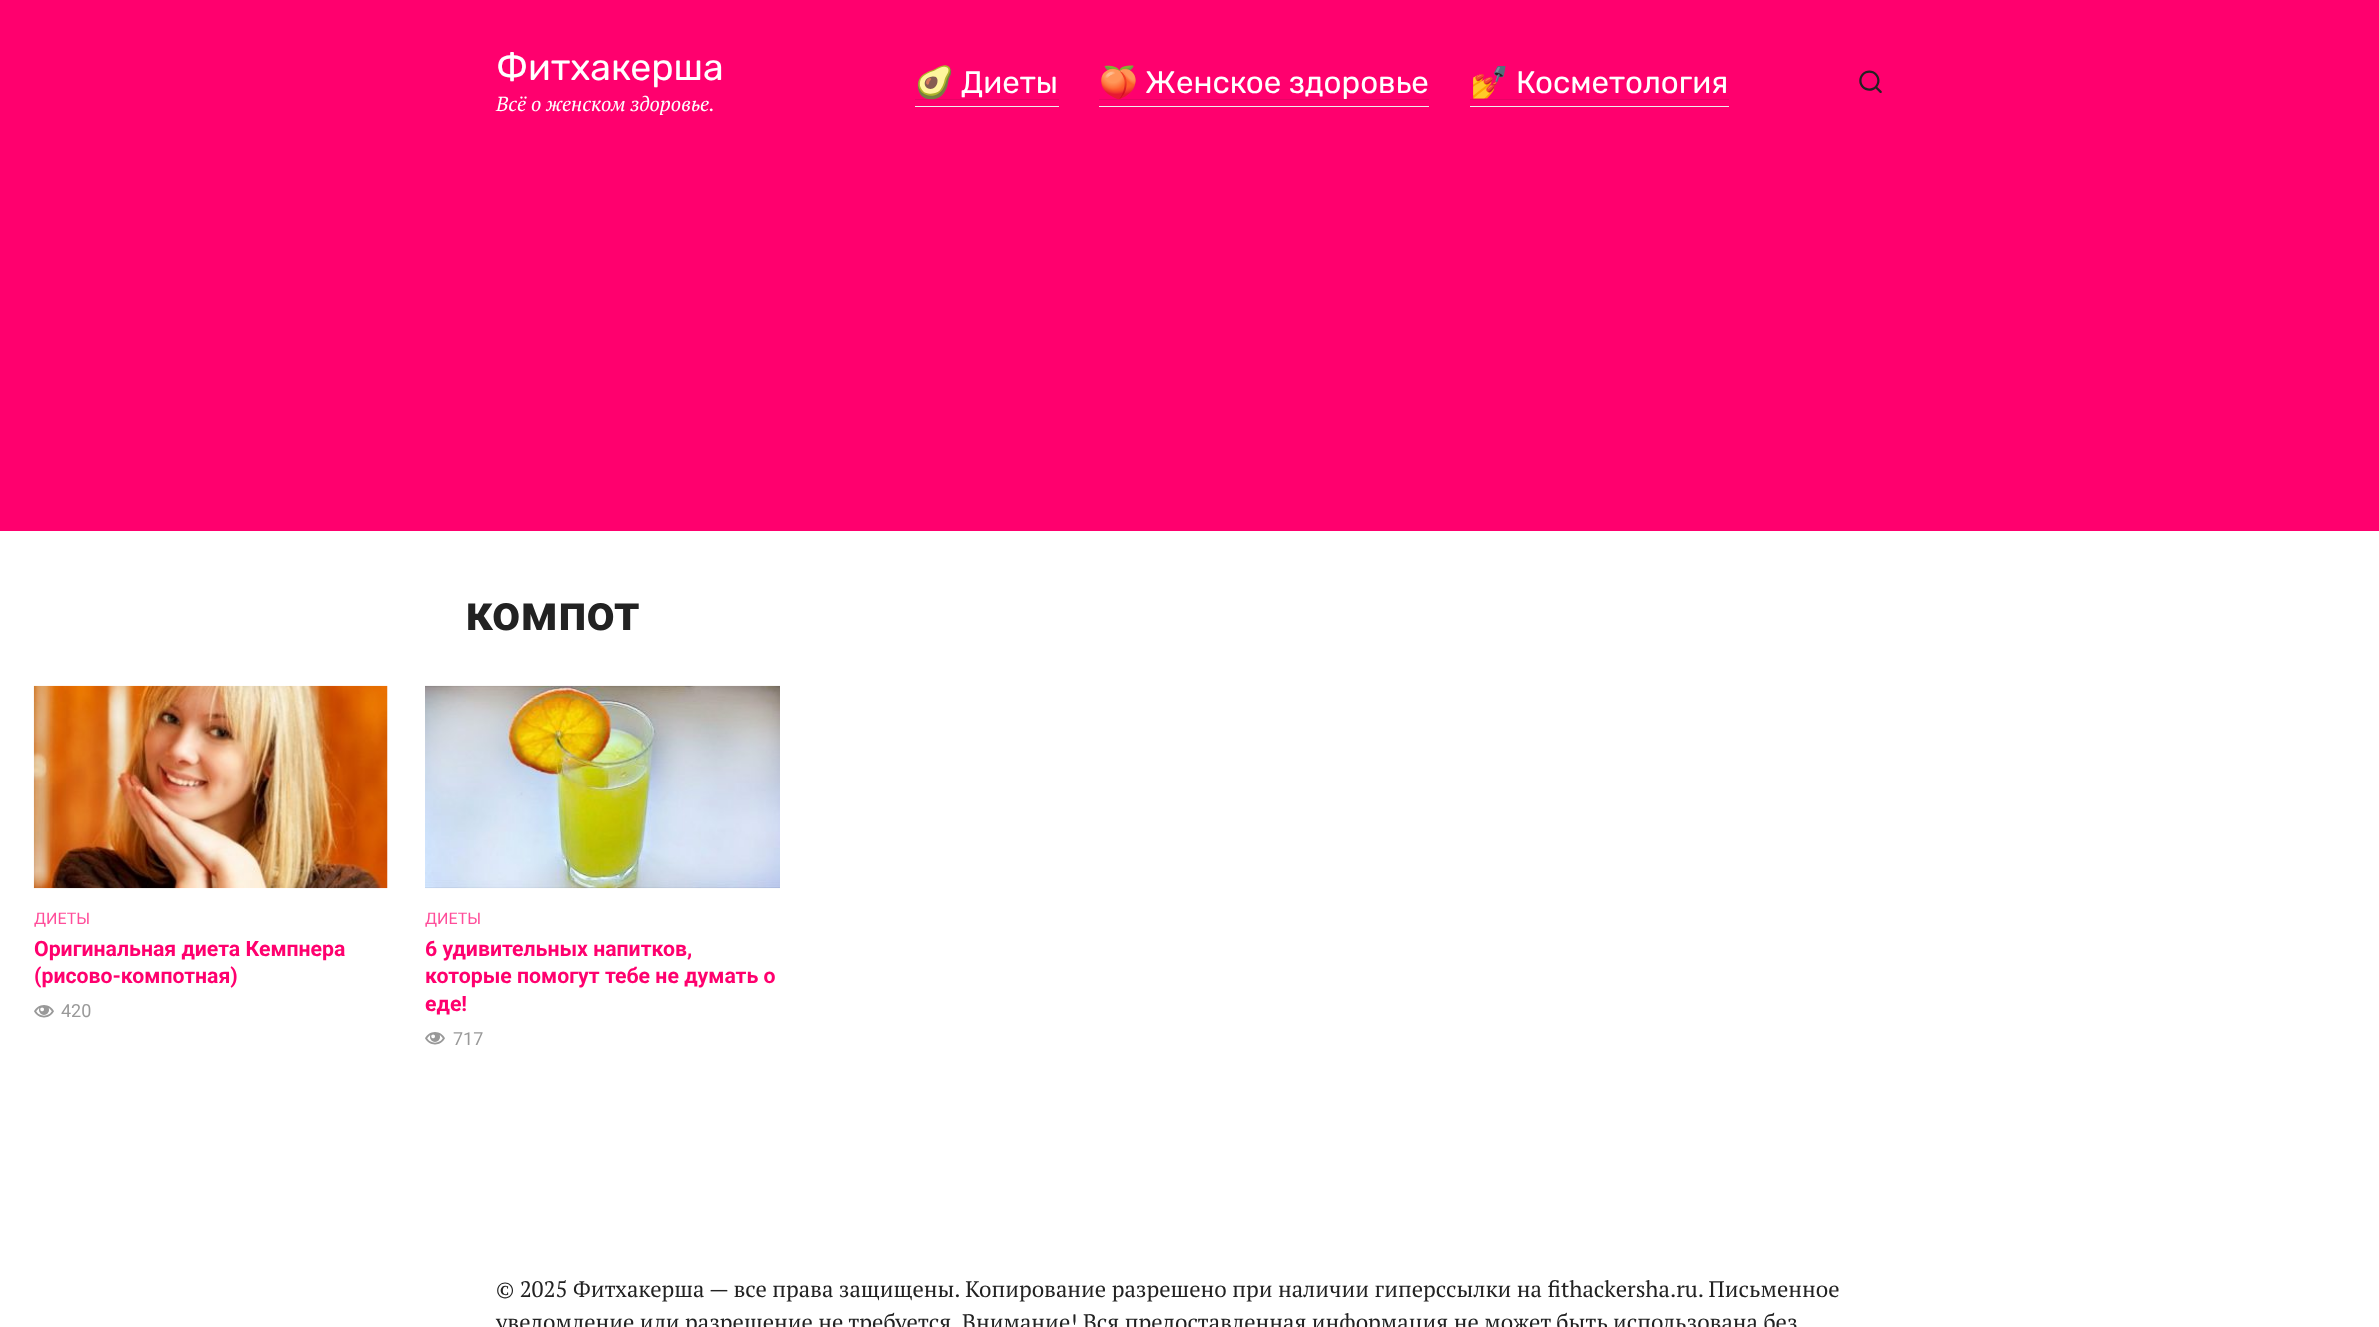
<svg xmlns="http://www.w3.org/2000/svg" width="2379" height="1327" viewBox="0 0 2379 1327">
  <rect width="100%" height="100%" fill="rgb(255,255,255)"/>
  <rect x="0" y="0" width="2379" height="531" fill="rgb(255,0,110)"/>
  <text x="496" y="80" font-family="Rubik" font-size="37.5" fill="rgb(255,255,255)">Фитхакерша</text>
  <text x="496" y="111" font-family="PT Serif" font-size="20.25" font-style="italic" fill="rgb(255,255,255)">Всё о женском здоровье.</text>
  <rect x="915" y="106" width="144" height="1" fill="rgb(238,238,238)"/>
  <rect x="915" y="99" width="144" height="1" fill="rgb(233,3,102)"/>
  <text x="915" y="93" font-family="Noto Color Emoji" font-size="31.25" fill="rgb(255,255,255)">🥑</text>
  <text x="961" y="93" font-family="Rubik" font-size="31.25" fill="rgb(255,255,255)">Диеты</text>
  <rect x="1099" y="106" width="330" height="1" fill="rgb(238,238,238)"/>
  <rect x="1099" y="99" width="330" height="1" fill="rgb(233,3,102)"/>
  <text x="1099" y="93" font-family="Noto Color Emoji" font-size="31.25" fill="rgb(255,255,255)">🍑</text>
  <text x="1145" y="93" font-family="Rubik" font-size="31.25" fill="rgb(255,255,255)">Женское здоровье</text>
  <rect x="1470" y="106" width="259" height="1" fill="rgb(238,238,238)"/>
  <rect x="1470" y="99" width="259" height="1" fill="rgb(233,3,102)"/>
  <text x="1470" y="93" font-family="Noto Color Emoji" font-size="31.25" fill="rgb(255,255,255)">💅</text>
  <text x="1516" y="93" font-family="Rubik" font-size="31.25" fill="rgb(255,255,255)">Косметология</text>
  <text x="1857" y="93" font-family="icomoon" font-size="27" fill="rgb(34,34,34)">🔍</text>
  <text x="465" y="630" font-family="Roboto" font-size="50" font-weight="bold" fill="rgb(34,34,34)">компот</text>
  <image x="33" y="685" width="355" height="204" href="pic1.png"/>
  <text x="34" y="924" font-family="Roboto" font-size="16" fill="rgb(255,77,154)">ДИЕТЫ</text>
  <g font-family="Roboto" font-size="21.25" font-weight="bold" fill="rgb(255,0,110)">
    <text>
      <tspan x="34" y="956">Оригинальная диета Кемпнера</tspan>
      <tspan x="34" y="983">(рисово-компотная)</tspan>
    </text>
  </g>
  <text x="34" y="1020" font-family="icomoon" font-size="20" fill="rgb(153,153,153)">👁</text>
  <text x="61" y="1017" font-family="Roboto" font-size="18" fill="rgb(153,153,153)">420</text>
  <image x="425" y="685" width="355" height="204" href="pic2.png"/>
  <text x="425" y="924" font-family="Roboto" font-size="16" fill="rgb(255,77,154)">ДИЕТЫ</text>
  <g font-family="Roboto" font-size="21.25" font-weight="bold" fill="rgb(255,0,110)">
    <text>
      <tspan x="425" y="956">6 удивительных напитков,</tspan>
      <tspan x="425" y="983">которые помогут тебе не думать о</tspan>
      <tspan x="425" y="1011">еде!</tspan>
    </text>
  </g>
  <text x="425" y="1047" font-family="icomoon" font-size="20" fill="rgb(153,153,153)">👁</text>
  <text x="453" y="1045" font-family="Roboto" font-size="18" fill="rgb(153,153,153)">717</text>
  <g font-family="PT Serif" font-size="22.5" fill="rgb(34,34,34)">
    <text>
      <tspan x="496" y="1297">© 2025 Фитхакерша — все права защищены. Копирование разрешено при наличии гиперссылки на fithackersha.ru. Письменное</tspan>
      <tspan x="496" y="1330">уведомление или разрешение не требуется. Внимание! Вся предоставленная информация не может быть использована без</tspan>
    </text>
  </g>
</svg>
